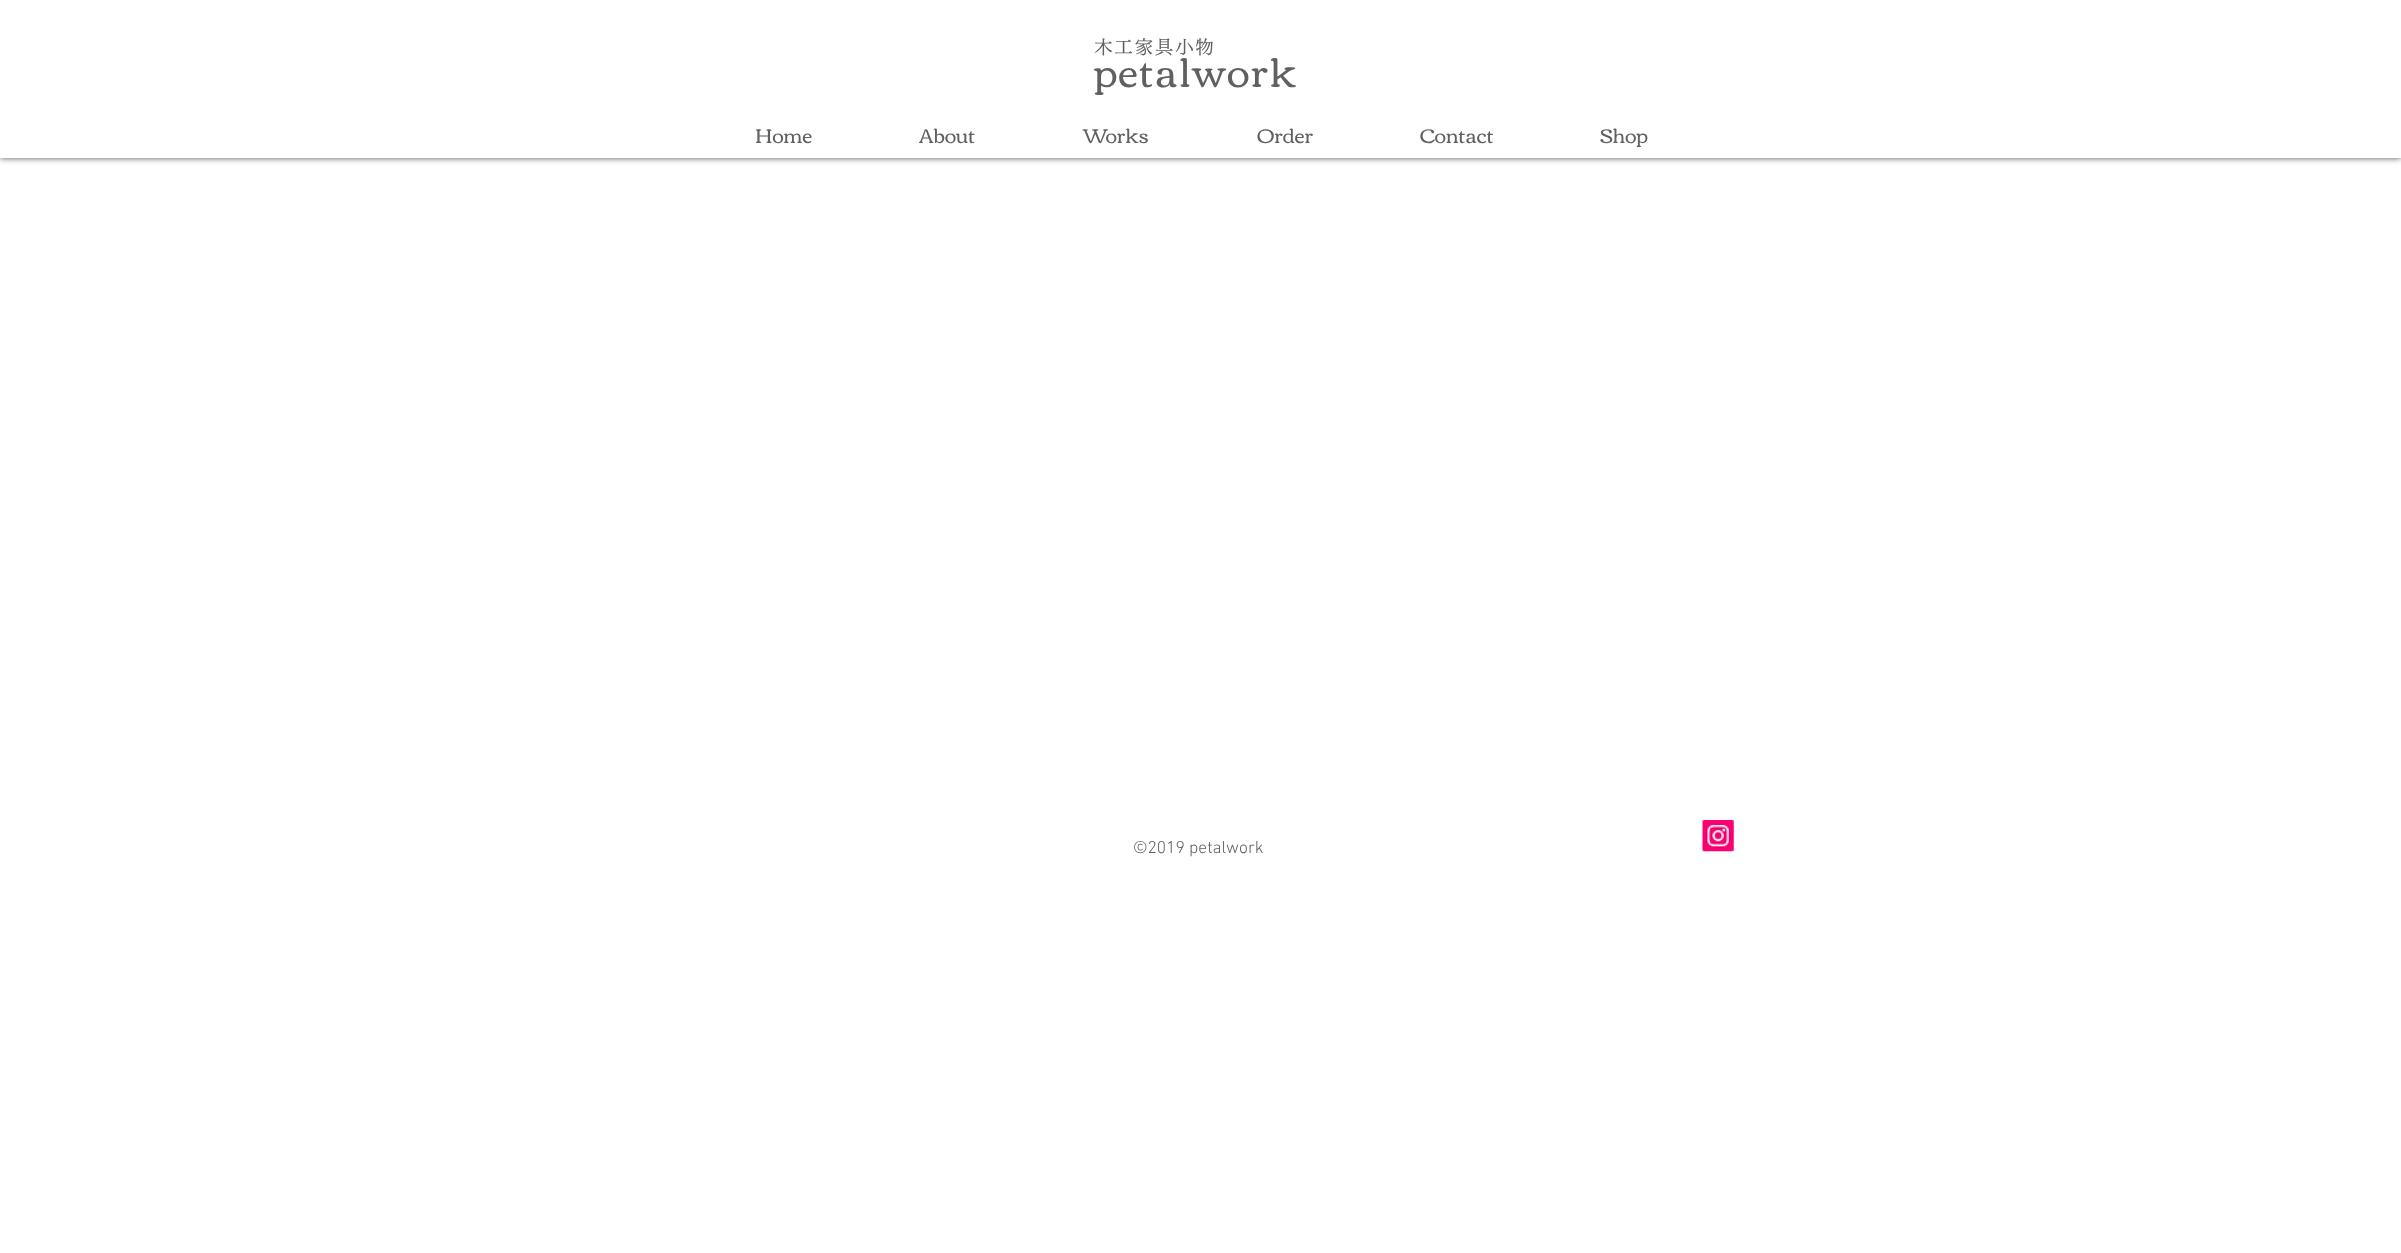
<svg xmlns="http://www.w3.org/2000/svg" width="2401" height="1253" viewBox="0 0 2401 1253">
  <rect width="100%" height="100%" fill="rgb(255,255,255)"/>
  <rect x="0" y="0" width="2401" height="158" fill="rgba(0,0,0,0.7)" filter="blur(3px)"/>
  <rect x="0" y="0" width="2401" height="158" fill="rgb(255,255,255)"/>
  <text x="1094" y="54" font-family="'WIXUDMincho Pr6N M'" font-size="18.75" font-weight="500" letter-spacing="1.5" fill="rgb(96,96,96)">木工家具小物</text>
  <text x="1094" y="87" font-family="Corben" font-size="40" letter-spacing="1.5" fill="rgb(96,96,96)">petalwork</text>
  <g font-family="Corben" font-size="20" fill="rgb(96,96,96)">
    <text x="755" y="143">Home</text>
    <text x="919" y="143">About</text>
    <text x="1083" y="143">Works</text>
    <text x="1257" y="143">Order</text>
    <text x="1420" y="143">Contact</text>
    <text x="1600" y="143">Shop</text>
  </g>
  <text x="1133" y="853" font-family="'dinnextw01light'" font-size="17.5" font-weight="300" fill="rgb(96,96,96)">©︎2019 petalwork</text>
  <image x="1702" y="820" width="32" height="32" href="pic1.png"/>
</svg>
